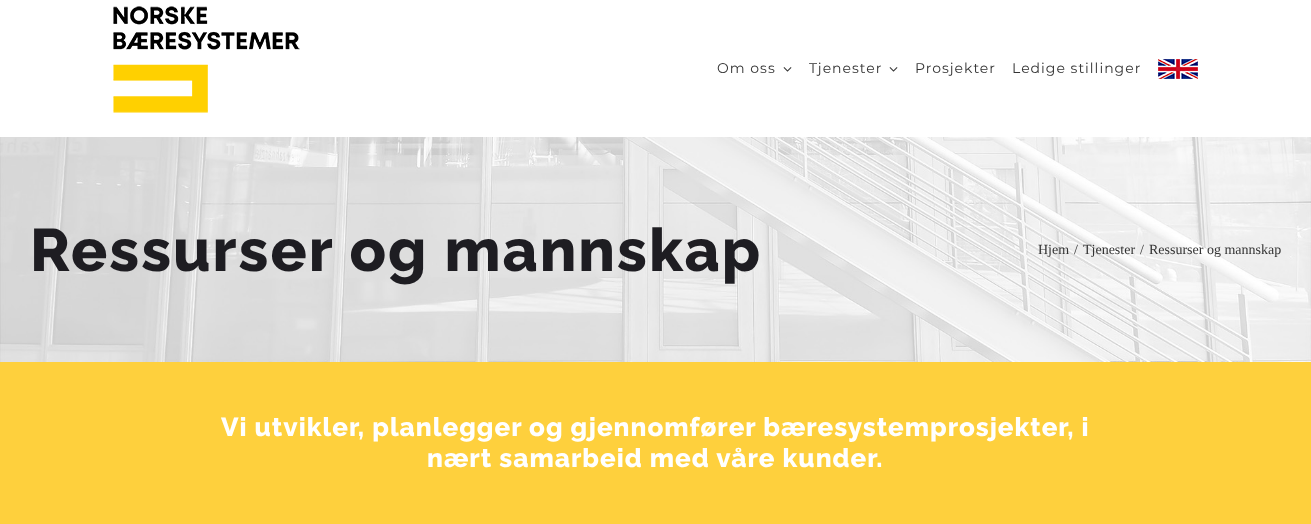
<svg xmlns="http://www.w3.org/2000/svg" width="1311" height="524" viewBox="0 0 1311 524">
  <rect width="100%" height="100%" fill="rgb(255,255,255)"/>
  <image x="113" y="6" width="187" height="107" href="pic1.png"/>
  <text x="717" y="73" font-family="Montserrat" font-size="14" letter-spacing="1" fill="rgb(51,51,51)">Om oss</text>
  <image x="783" y="67" width="9" height="5" href="pic2.png"/>
  <text x="809" y="73" font-family="Montserrat" font-size="14" letter-spacing="1" fill="rgb(51,51,51)">Tjenester</text>
  <image x="889" y="67" width="9" height="5" href="pic2.png"/>
  <g font-family="Montserrat" font-size="14" letter-spacing="1" fill="rgb(51,51,51)">
    <text x="915" y="73">Prosjekter</text>
    <text x="1012" y="73">Ledige stillinger</text>
  </g>
  <image x="1158" y="59" width="40" height="20" href="pic3.png"/>
  <image x="0" y="137" width="1311" height="225" href="pic4.png"/>
  <text x="30" y="271" font-family="Raleway" font-size="60" font-weight="800" letter-spacing="2" fill="rgb(30,29,34)">Ressurser og mannskap</text>
  <g font-family="Liberation Serif" font-size="14" fill="rgb(51,51,51)">
    <text x="1038" y="254">Hjem</text>
    <text x="1074" y="254">/</text>
    <text x="1083" y="254">Tjenester</text>
    <text x="1140" y="254">/</text>
    <text x="1149" y="254">Ressurser og mannskap</text>
  </g>
  <rect x="0" y="362" width="1311" height="162" fill="rgb(254,208,61)"/>
  <g font-family="Raleway" font-size="26" font-weight="800" letter-spacing="1" fill="rgb(255,255,255)">
    <text x="221" y="436">Vi utvikler, planlegger og gjennomfører bæresystemprosjekter, i</text>
    <text x="427" y="467">nært samarbeid med våre kunder.</text>
  </g>
</svg>
